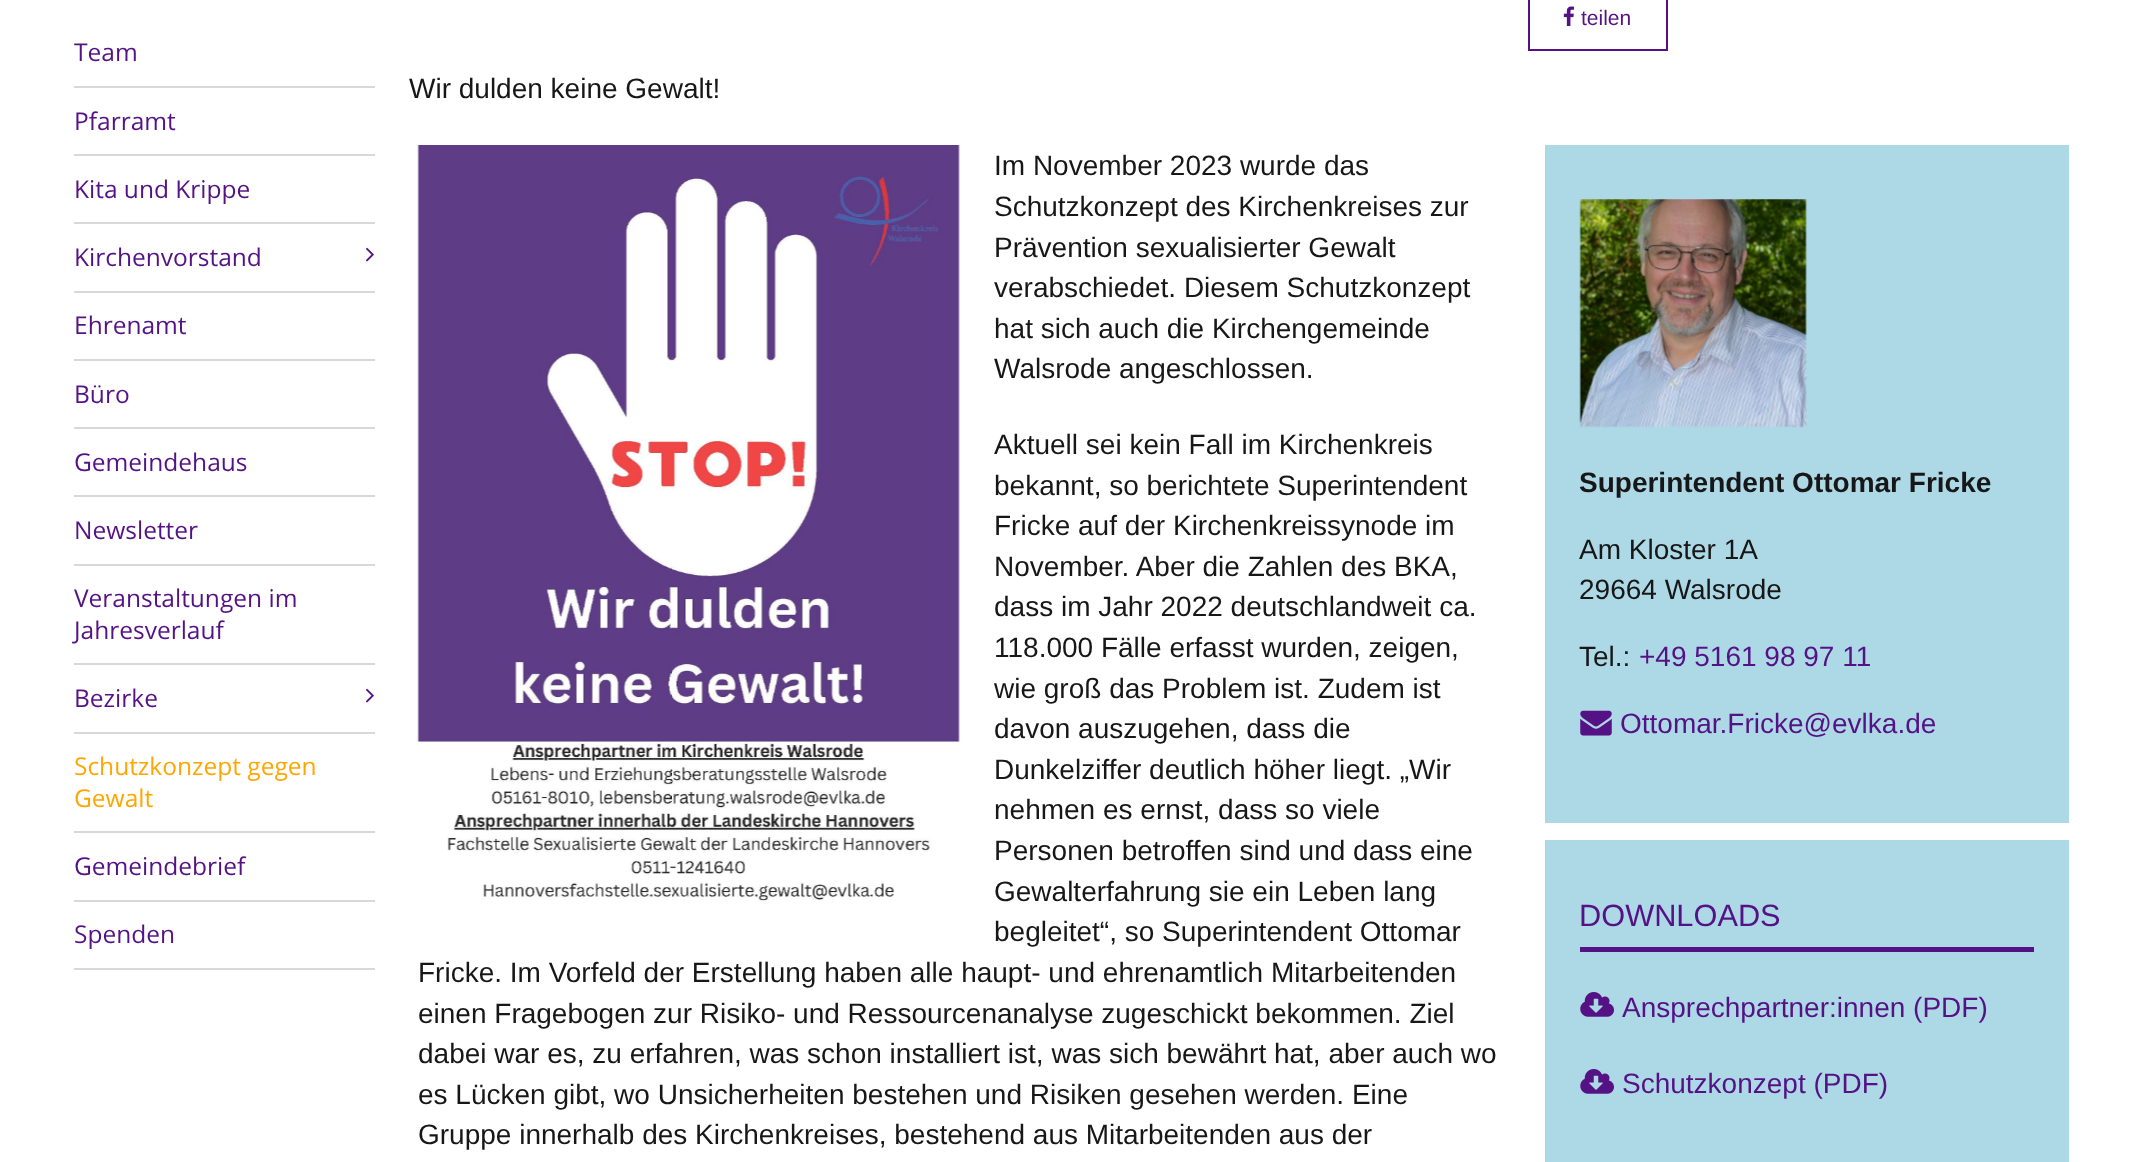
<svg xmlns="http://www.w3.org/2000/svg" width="2141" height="1162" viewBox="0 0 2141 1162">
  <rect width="100%" height="100%" fill="rgb(255,255,255)"/>
  <rect x="74" y="86" width="301" height="2" fill="rgb(216,216,216)"/>
  <text x="74" y="61" font-family="Open Sans" font-size="24.5" fill="rgb(85,18,133)">Team</text>
  <rect x="74" y="154" width="301" height="2" fill="rgb(216,216,216)"/>
  <text x="74" y="130" font-family="Open Sans" font-size="24.5" fill="rgb(85,18,133)">Pfarramt</text>
  <rect x="74" y="222" width="301" height="2" fill="rgb(216,216,216)"/>
  <text x="74" y="198" font-family="Open Sans" font-size="24.5" fill="rgb(85,18,133)">Kita und Krippe</text>
  <rect x="74" y="291" width="301" height="2" fill="rgb(216,216,216)"/>
  <text x="74" y="266" font-family="Open Sans" font-size="24.5" fill="rgb(85,18,133)">Kirchenvorstand</text>
  <image x="366" y="247" width="8" height="15" href="pic1.png"/>
  <rect x="74" y="359" width="301" height="2" fill="rgb(216,216,216)"/>
  <text x="74" y="334" font-family="Open Sans" font-size="24.5" fill="rgb(85,18,133)">Ehrenamt</text>
  <rect x="74" y="427" width="301" height="2" fill="rgb(216,216,216)"/>
  <text x="74" y="403" font-family="Open Sans" font-size="24.5" fill="rgb(85,18,133)">Büro</text>
  <rect x="74" y="495" width="301" height="2" fill="rgb(216,216,216)"/>
  <text x="74" y="471" font-family="Open Sans" font-size="24.5" fill="rgb(85,18,133)">Gemeindehaus</text>
  <rect x="74" y="564" width="301" height="2" fill="rgb(216,216,216)"/>
  <text x="74" y="539" font-family="Open Sans" font-size="24.5" fill="rgb(85,18,133)">Newsletter</text>
  <rect x="74" y="663" width="301" height="2" fill="rgb(216,216,216)"/>
  <g font-family="Open Sans" font-size="24.5" fill="rgb(85,18,133)">
    <text>
      <tspan x="74" y="607">Veranstaltungen im</tspan>
      <tspan x="74" y="639">Jahresverlauf</tspan>
    </text>
  </g>
  <rect x="74" y="732" width="301" height="2" fill="rgb(216,216,216)"/>
  <text x="74" y="707" font-family="Open Sans" font-size="24.5" fill="rgb(85,18,133)">Bezirke</text>
  <image x="366" y="688" width="8" height="15" href="pic1.png"/>
  <rect x="74" y="831" width="301" height="2" fill="rgb(216,216,216)"/>
  <g font-family="Open Sans" font-size="24.5" fill="rgb(255,166,0)">
    <text>
      <tspan x="74" y="775">Schutzkonzept gegen</tspan>
      <tspan x="74" y="807">Gewalt</tspan>
    </text>
  </g>
  <rect x="74" y="900" width="301" height="2" fill="rgb(216,216,216)"/>
  <text x="74" y="875" font-family="Open Sans" font-size="24.5" fill="rgb(85,18,133)">Gemeindebrief</text>
  <rect x="74" y="968" width="301" height="2" fill="rgb(216,216,216)"/>
  <text x="74" y="943" font-family="Open Sans" font-size="24.5" fill="rgb(85,18,133)">Spenden</text>
  <rect x="1529" y="-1" width="138" height="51" fill="none" stroke="rgb(85,18,133)" stroke-width="2"/>
  <image x="1563" y="6" width="11" height="20" href="pic2.png"/>
  <text x="1581" y="25" font-family="Liberation Sans" font-size="21" fill="rgb(85,18,133)">teilen</text>
  <text x="409" y="98" font-family="Liberation Sans" font-size="28" fill="rgb(23,23,23)">Wir dulden keine Gewalt!</text>
  <image x="417" y="145" width="543" height="757" href="pic3.png"/>
  <g font-family="Liberation Sans" font-size="28" fill="rgb(23,23,23)">
    <text>
      <tspan x="994" y="175">Im November 2023 wurde das</tspan>
      <tspan x="994" y="216">Schutzkonzept des Kirchenkreises zur</tspan>
      <tspan x="994" y="257">Prävention sexualisierter Gewalt</tspan>
      <tspan x="994" y="297">verabschiedet. Diesem Schutzkonzept</tspan>
      <tspan x="994" y="338">hat sich auch die Kirchengemeinde</tspan>
      <tspan x="994" y="378">Walsrode angeschlossen.</tspan>
    </text>
    <text>
      <tspan x="994" y="454">Aktuell sei kein Fall im Kirchenkreis</tspan>
      <tspan x="994" y="495">bekannt, so berichtete Superintendent</tspan>
      <tspan x="994" y="535">Fricke auf der Kirchenkreissynode im</tspan>
      <tspan x="994" y="576">November. Aber die Zahlen des BKA,</tspan>
      <tspan x="994" y="616">dass im Jahr 2022 deutschlandweit ca.</tspan>
      <tspan x="994" y="657">118.000 Fälle erfasst wurden, zeigen,</tspan>
      <tspan x="994" y="698">wie groß das Problem ist. Zudem ist</tspan>
      <tspan x="994" y="738">davon auszugehen, dass die</tspan>
      <tspan x="994" y="779">Dunkelziffer deutlich höher liegt. „Wir</tspan>
      <tspan x="994" y="819">nehmen es ernst, dass so viele</tspan>
      <tspan x="994" y="860">Personen betroffen sind und dass eine</tspan>
      <tspan x="994" y="901">Gewalterfahrung sie ein Leben lang</tspan>
      <tspan x="994" y="941">begleitet“, so Superintendent Ottomar</tspan>
    </text>
    <text>
      <tspan x="418" y="982">Fricke. Im Vorfeld der Erstellung haben alle haupt- und ehrenamtlich Mitarbeitenden</tspan>
      <tspan x="418" y="1023">einen Fragebogen zur Risiko- und Ressourcenanalyse zugeschickt bekommen. Ziel</tspan>
      <tspan x="418" y="1063">dabei war es, zu erfahren, was schon installiert ist, was sich bewährt hat, aber auch wo</tspan>
      <tspan x="418" y="1104">es Lücken gibt, wo Unsicherheiten bestehen und Risiken gesehen werden. Eine</tspan>
      <tspan x="418" y="1144">Gruppe innerhalb des Kirchenkreises, bestehend aus Mitarbeitenden aus der</tspan>
    </text>
  </g>
  <rect x="1545" y="145" width="524" height="678" fill="rgb(173,216,230)"/>
  <image x="1579" y="199" width="228" height="229" href="pic4.png"/>
  <text x="1579" y="492" font-family="Liberation Sans" font-size="28" font-weight="bold" fill="rgb(23,23,23)">Superintendent Ottomar Fricke</text>
  <g font-family="Liberation Sans" font-size="28" fill="rgb(23,23,23)">
    <text>
      <tspan x="1579" y="559">Am Kloster 1A</tspan>
      <tspan x="1579" y="599">29664 Walsrode</tspan>
    </text>
    <text x="1579" y="666">Tel.:</text>
  </g>
  <text x="1639" y="666" font-family="Liberation Sans" font-size="28" fill="rgb(85,18,133)">+49 5161 98 97 11</text>
  <image x="1580" y="710" width="32" height="26" href="pic5.png"/>
  <text x="1620" y="733" font-family="Liberation Sans" font-size="28" fill="rgb(85,18,133)">Ottomar.Fricke@evlka.de</text>
  <rect x="1545" y="840" width="524" height="322" fill="rgb(173,216,230)"/>
  <rect x="1580" y="947" width="454" height="5" fill="rgb(85,18,133)"/>
  <text x="1579" y="926" font-family="Liberation Sans" font-size="30.75" fill="rgb(85,18,133)">DOWNLOADS</text>
  <image x="1580" y="992" width="34" height="25" href="pic6.png"/>
  <text x="1622" y="1017" font-family="Liberation Sans" font-size="28" fill="rgb(85,18,133)">Ansprechpartner:innen (PDF)</text>
  <image x="1580" y="1069" width="34" height="25" href="pic7.png"/>
  <text x="1622" y="1093" font-family="Liberation Sans" font-size="28" fill="rgb(85,18,133)">Schutzkonzept (PDF)</text>
</svg>
